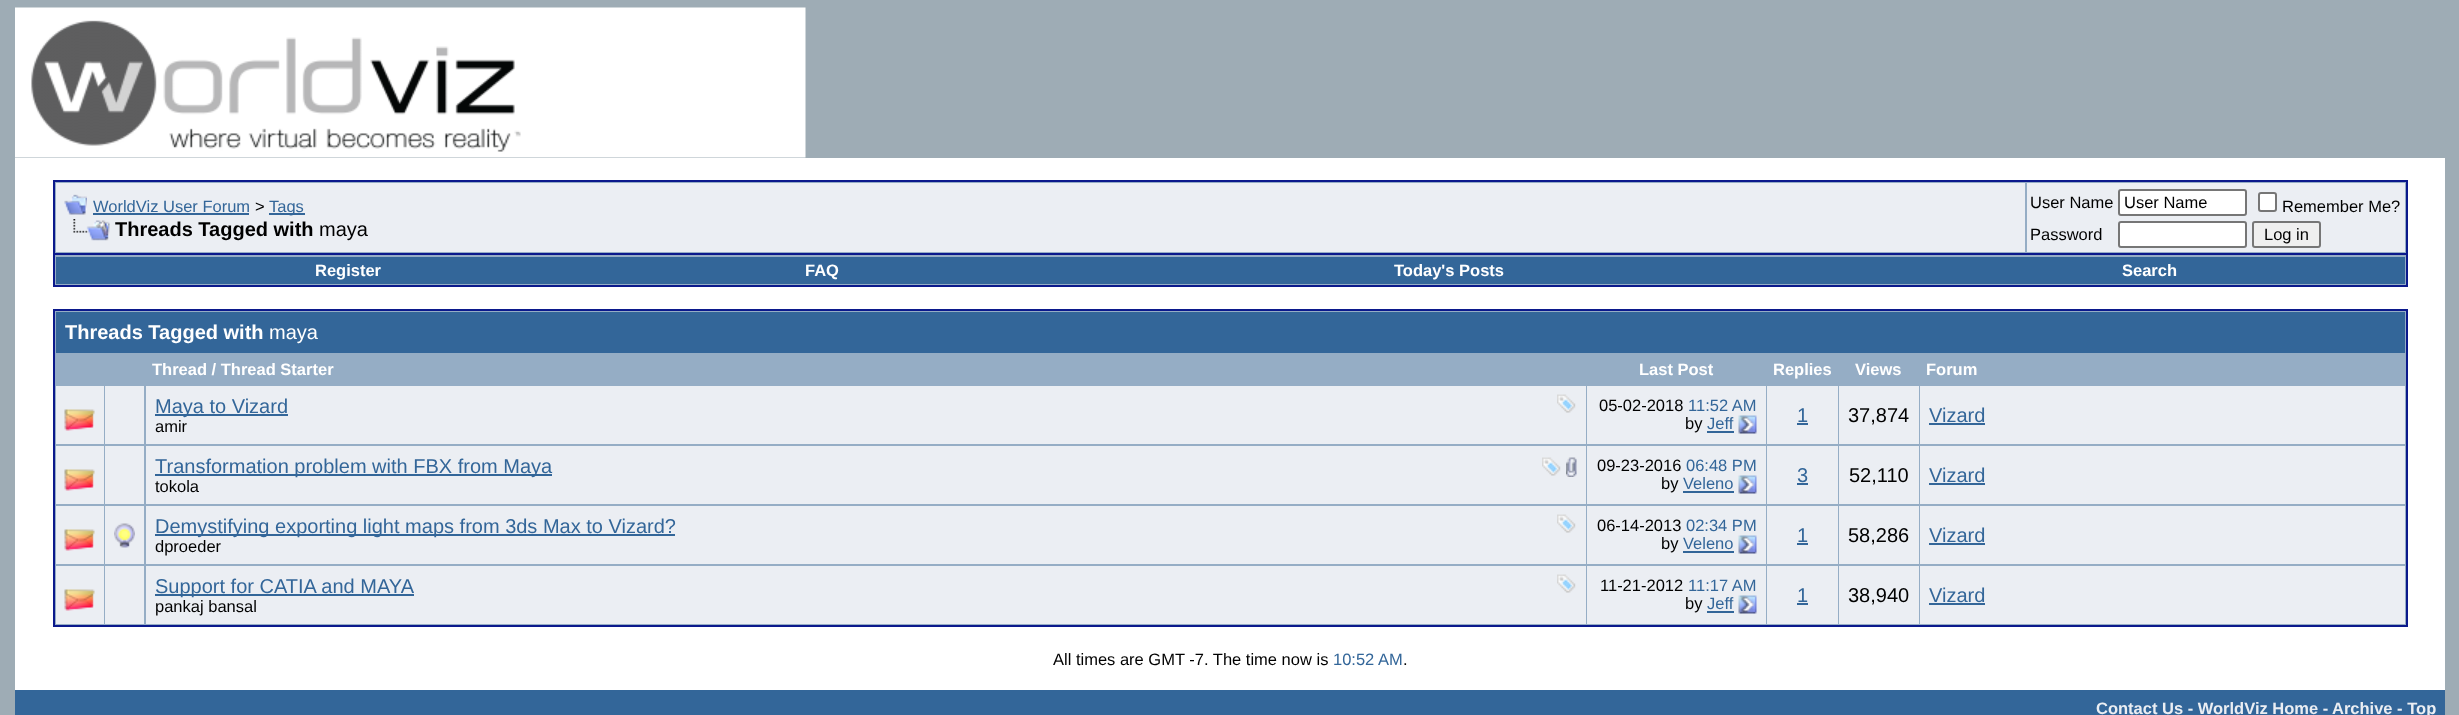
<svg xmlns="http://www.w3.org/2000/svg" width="2459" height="715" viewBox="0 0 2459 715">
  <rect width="100%" height="100%" fill="rgb(158,172,181)"/>
  <image x="15" y="7" width="791" height="151" href="pic1.png"/>
  <rect x="15" y="158" width="2430" height="532" fill="rgb(255,255,255)"/>
  <rect x="54" y="181" width="2353" height="73" fill="rgb(149,173,197)" stroke="rgb(11,25,140)" stroke-width="2"/>
  <rect x="56" y="183" width="1969" height="69" fill="rgb(235,238,243)"/>
  <image x="64" y="194" width="23" height="21" href="pic2.png"/>
  <text x="93" y="212" font-family="Liberation Sans" font-size="16.5" fill="rgb(51,102,153)">WorldViz User Forum</text>
  <rect x="93" y="213" width="156" height="2" fill="rgb(51,102,153)"/>
  <text x="255" y="212" font-family="Liberation Sans" font-size="16.5" fill="rgb(0,0,0)">&gt;</text>
  <rect x="269" y="213" width="36" height="2" fill="rgb(51,102,153)"/>
  <text x="269" y="212" font-family="Liberation Sans" font-size="16.5" fill="rgb(51,102,153)">Tags</text>
  <image x="73" y="219" width="37" height="22" href="pic3.png"/>
  <text x="115" y="236" font-family="Liberation Sans" font-size="20" font-weight="bold" fill="rgb(0,0,0)">Threads Tagged with</text>
  <text x="319" y="236" font-family="Liberation Sans" font-size="20" fill="rgb(0,0,0)">maya</text>
  <rect x="2027" y="183" width="378" height="69" fill="rgb(235,238,243)"/>
  <text x="2030" y="208" font-family="Liberation Sans" font-size="16.5" fill="rgb(0,0,0)">User Name</text>
  <rect x="2119" y="190" width="127" height="25" rx="2" fill="rgb(255,255,255)" stroke="rgb(118,118,118)" stroke-width="2"/>
  <text x="2124" y="208" font-family="Liberation Sans" font-size="16.5" fill="rgb(0,0,0)">User Name</text>
  <rect x="2259" y="193" width="17" height="18" rx="2" fill="rgb(255,255,255)" stroke="rgb(118,118,118)" stroke-width="2"/>
  <g font-family="Liberation Sans" font-size="16.5" fill="rgb(0,0,0)">
    <text x="2282" y="212">Remember Me?</text>
    <text x="2030" y="240">Password</text>
  </g>
  <rect x="2119" y="222" width="127" height="25" rx="2" fill="rgb(255,255,255)" stroke="rgb(118,118,118)" stroke-width="2"/>
  <rect x="2253" y="222" width="67" height="25" rx="2" fill="rgb(239,239,239)" stroke="rgb(118,118,118)" stroke-width="2"/>
  <text x="2264" y="240" font-family="Liberation Sans" font-size="16.5" fill="rgb(0,0,0)">Log in</text>
  <rect x="55" y="255" width="2351" height="30" fill="rgb(149,173,197)"/>
  <rect x="2406" y="255" width="2" height="32" fill="rgb(11,25,140)"/>
  <rect x="53" y="285" width="2355" height="2" fill="rgb(11,25,140)"/>
  <rect x="53" y="255" width="2" height="32" fill="rgb(11,25,140)"/>
  <rect x="56" y="257" width="2349" height="27" fill="rgb(51,102,153)"/>
  <g font-family="Liberation Sans" font-size="16.5" font-weight="bold" fill="rgb(255,255,255)">
    <text x="315" y="276">Register</text>
    <text x="805" y="276">FAQ</text>
    <text x="1394" y="276">Today's Posts</text>
    <text x="2122" y="276">Search</text>
  </g>
  <rect x="54" y="310" width="2353" height="316" fill="rgb(149,173,197)" stroke="rgb(11,25,140)" stroke-width="2"/>
  <rect x="56" y="312" width="2349" height="41" fill="rgb(51,102,153)"/>
  <text x="65" y="339" font-family="Liberation Sans" font-size="20" font-weight="bold" fill="rgb(255,255,255)">Threads Tagged with</text>
  <text x="269" y="339" font-family="Liberation Sans" font-size="20" fill="rgb(255,255,255)">maya</text>
  <g font-family="Liberation Sans" font-size="16.5" font-weight="bold" fill="rgb(255,255,255)">
    <text x="152" y="375">Thread / Thread Starter</text>
    <text x="1639" y="375">Last Post</text>
    <text x="1773" y="375">Replies</text>
    <text x="1855" y="375">Views</text>
    <text x="1926" y="375">Forum</text>
  </g>
  <rect x="56" y="386" width="48" height="58" fill="rgb(235,238,243)"/>
  <image x="64" y="409" width="31" height="22" href="pic4.png"/>
  <rect x="105" y="386" width="39" height="58" fill="rgb(235,238,243)"/>
  <rect x="146" y="386" width="1440" height="58" fill="rgb(235,238,243)"/>
  <rect x="155" y="414" width="133" height="2" fill="rgb(51,102,153)"/>
  <text x="155" y="413" font-family="Liberation Sans" font-size="20" fill="rgb(51,102,153)">Maya to Vizard</text>
  <image x="1557" y="394" width="19" height="19" href="pic5.png"/>
  <text x="155" y="432" font-family="Liberation Sans" font-size="16.5" fill="rgb(0,0,0)">amir</text>
  <rect x="1587" y="386" width="179" height="58" fill="rgb(235,238,243)"/>
  <text x="1599" y="411" font-family="Liberation Sans" font-size="16.5" fill="rgb(0,0,0)">05-02-2018</text>
  <text x="1688" y="411" font-family="Liberation Sans" font-size="16.5" fill="rgb(51,102,153)">11:52 AM</text>
  <text x="1685" y="429" font-family="Liberation Sans" font-size="16.5" fill="rgb(0,0,0)">by</text>
  <text x="1707" y="429" font-family="Liberation Sans" font-size="16.5" fill="rgb(51,102,153)">Jeff</text>
  <rect x="1707" y="431" width="27" height="2" fill="rgb(51,102,153)"/>
  <image x="1738" y="415" width="19" height="19" href="pic6.png"/>
  <rect x="1767" y="386" width="71" height="58" fill="rgb(235,238,243)"/>
  <text x="1797" y="422" font-family="Liberation Sans" font-size="20" fill="rgb(51,102,153)">1</text>
  <rect x="1797" y="423" width="11" height="2" fill="rgb(51,102,153)"/>
  <rect x="1839" y="386" width="80" height="58" fill="rgb(235,238,243)"/>
  <text x="1848" y="422" font-family="Liberation Sans" font-size="20" fill="rgb(0,0,0)">37,874</text>
  <rect x="1920" y="386" width="485" height="58" fill="rgb(235,238,243)"/>
  <text x="1929" y="422" font-family="Liberation Sans" font-size="20" fill="rgb(51,102,153)">Vizard</text>
  <rect x="1929" y="423" width="56" height="2" fill="rgb(51,102,153)"/>
  <rect x="56" y="446" width="48" height="58" fill="rgb(235,238,243)"/>
  <image x="64" y="469" width="31" height="22" href="pic4.png"/>
  <rect x="105" y="446" width="39" height="58" fill="rgb(235,238,243)"/>
  <rect x="146" y="446" width="1440" height="58" fill="rgb(235,238,243)"/>
  <rect x="155" y="474" width="397" height="2" fill="rgb(51,102,153)"/>
  <text x="155" y="473" font-family="Liberation Sans" font-size="20" fill="rgb(51,102,153)">Transformation problem with FBX from Maya</text>
  <image x="1542" y="457" width="19" height="19" href="pic5.png"/>
  <image x="1566" y="457" width="11" height="20" href="pic7.png"/>
  <text x="155" y="492" font-family="Liberation Sans" font-size="16.5" fill="rgb(0,0,0)">tokola</text>
  <rect x="1587" y="446" width="179" height="58" fill="rgb(235,238,243)"/>
  <text x="1597" y="471" font-family="Liberation Sans" font-size="16.5" fill="rgb(0,0,0)">09-23-2016</text>
  <text x="1686" y="471" font-family="Liberation Sans" font-size="16.5" fill="rgb(51,102,153)">06:48 PM</text>
  <text x="1661" y="489" font-family="Liberation Sans" font-size="16.5" fill="rgb(0,0,0)">by</text>
  <text x="1683" y="489" font-family="Liberation Sans" font-size="16.5" fill="rgb(51,102,153)">Veleno</text>
  <rect x="1683" y="491" width="51" height="2" fill="rgb(51,102,153)"/>
  <image x="1738" y="475" width="19" height="19" href="pic6.png"/>
  <rect x="1767" y="446" width="71" height="58" fill="rgb(235,238,243)"/>
  <text x="1797" y="482" font-family="Liberation Sans" font-size="20" fill="rgb(51,102,153)">3</text>
  <rect x="1797" y="483" width="11" height="2" fill="rgb(51,102,153)"/>
  <rect x="1839" y="446" width="80" height="58" fill="rgb(235,238,243)"/>
  <text x="1849" y="482" font-family="Liberation Sans" font-size="20" fill="rgb(0,0,0)">52,110</text>
  <rect x="1920" y="446" width="485" height="58" fill="rgb(235,238,243)"/>
  <text x="1929" y="482" font-family="Liberation Sans" font-size="20" fill="rgb(51,102,153)">Vizard</text>
  <rect x="1929" y="483" width="56" height="2" fill="rgb(51,102,153)"/>
  <rect x="56" y="506" width="48" height="58" fill="rgb(235,238,243)"/>
  <image x="64" y="529" width="31" height="22" href="pic4.png"/>
  <rect x="105" y="506" width="39" height="58" fill="rgb(235,238,243)"/>
  <image x="114" y="523" width="21" height="25" href="pic8.png"/>
  <rect x="146" y="506" width="1440" height="58" fill="rgb(235,238,243)"/>
  <rect x="155" y="534" width="520" height="2" fill="rgb(51,102,153)"/>
  <text x="155" y="533" font-family="Liberation Sans" font-size="20" fill="rgb(51,102,153)">Demystifying exporting light maps from 3ds Max to Vizard?</text>
  <image x="1557" y="514" width="19" height="19" href="pic5.png"/>
  <text x="155" y="552" font-family="Liberation Sans" font-size="16.5" fill="rgb(0,0,0)">dproeder</text>
  <rect x="1587" y="506" width="179" height="58" fill="rgb(235,238,243)"/>
  <text x="1597" y="531" font-family="Liberation Sans" font-size="16.5" fill="rgb(0,0,0)">06-14-2013</text>
  <text x="1686" y="531" font-family="Liberation Sans" font-size="16.5" fill="rgb(51,102,153)">02:34 PM</text>
  <text x="1661" y="549" font-family="Liberation Sans" font-size="16.5" fill="rgb(0,0,0)">by</text>
  <text x="1683" y="549" font-family="Liberation Sans" font-size="16.5" fill="rgb(51,102,153)">Veleno</text>
  <rect x="1683" y="551" width="51" height="2" fill="rgb(51,102,153)"/>
  <image x="1738" y="535" width="19" height="19" href="pic6.png"/>
  <rect x="1767" y="506" width="71" height="58" fill="rgb(235,238,243)"/>
  <text x="1797" y="542" font-family="Liberation Sans" font-size="20" fill="rgb(51,102,153)">1</text>
  <rect x="1797" y="543" width="11" height="2" fill="rgb(51,102,153)"/>
  <rect x="1839" y="506" width="80" height="58" fill="rgb(235,238,243)"/>
  <text x="1848" y="542" font-family="Liberation Sans" font-size="20" fill="rgb(0,0,0)">58,286</text>
  <rect x="1920" y="506" width="485" height="58" fill="rgb(235,238,243)"/>
  <text x="1929" y="542" font-family="Liberation Sans" font-size="20" fill="rgb(51,102,153)">Vizard</text>
  <rect x="1929" y="543" width="56" height="2" fill="rgb(51,102,153)"/>
  <rect x="56" y="566" width="48" height="58" fill="rgb(235,238,243)"/>
  <image x="64" y="589" width="31" height="22" href="pic4.png"/>
  <rect x="105" y="566" width="39" height="58" fill="rgb(235,238,243)"/>
  <rect x="146" y="566" width="1440" height="58" fill="rgb(235,238,243)"/>
  <rect x="155" y="594" width="259" height="2" fill="rgb(51,102,153)"/>
  <text x="155" y="593" font-family="Liberation Sans" font-size="20" fill="rgb(51,102,153)">Support for CATIA and MAYA</text>
  <image x="1557" y="574" width="19" height="19" href="pic5.png"/>
  <text x="155" y="612" font-family="Liberation Sans" font-size="16.5" fill="rgb(0,0,0)">pankaj bansal</text>
  <rect x="1587" y="566" width="179" height="58" fill="rgb(235,238,243)"/>
  <text x="1600" y="591" font-family="Liberation Sans" font-size="16.5" fill="rgb(0,0,0)">11-21-2012</text>
  <text x="1688" y="591" font-family="Liberation Sans" font-size="16.5" fill="rgb(51,102,153)">11:17 AM</text>
  <text x="1685" y="609" font-family="Liberation Sans" font-size="16.5" fill="rgb(0,0,0)">by</text>
  <text x="1707" y="609" font-family="Liberation Sans" font-size="16.5" fill="rgb(51,102,153)">Jeff</text>
  <rect x="1707" y="611" width="27" height="2" fill="rgb(51,102,153)"/>
  <image x="1738" y="595" width="19" height="19" href="pic6.png"/>
  <rect x="1767" y="566" width="71" height="58" fill="rgb(235,238,243)"/>
  <text x="1797" y="602" font-family="Liberation Sans" font-size="20" fill="rgb(51,102,153)">1</text>
  <rect x="1797" y="603" width="11" height="2" fill="rgb(51,102,153)"/>
  <rect x="1839" y="566" width="80" height="58" fill="rgb(235,238,243)"/>
  <text x="1848" y="602" font-family="Liberation Sans" font-size="20" fill="rgb(0,0,0)">38,940</text>
  <rect x="1920" y="566" width="485" height="58" fill="rgb(235,238,243)"/>
  <text x="1929" y="602" font-family="Liberation Sans" font-size="20" fill="rgb(51,102,153)">Vizard</text>
  <rect x="1929" y="603" width="56" height="2" fill="rgb(51,102,153)"/>
  <text x="1053" y="665" font-family="Liberation Sans" font-size="16.5" fill="rgb(0,0,0)">All times are GMT -7. The time now is</text>
  <text x="1333" y="665" font-family="Liberation Sans" font-size="16.5" fill="rgb(51,102,153)">10:52 AM</text>
  <text x="1403" y="665" font-family="Liberation Sans" font-size="16.5" fill="rgb(0,0,0)">.</text>
  <rect x="15" y="690" width="2430" height="25" fill="rgb(51,102,153)"/>
  <g font-family="Liberation Sans" font-size="16.5" font-weight="bold" fill="rgb(235,238,243)">
    <text x="2096" y="714">Contact Us - WorldViz Home -</text>
    <text x="2332" y="714">Archive - Top</text>
  </g>
</svg>
